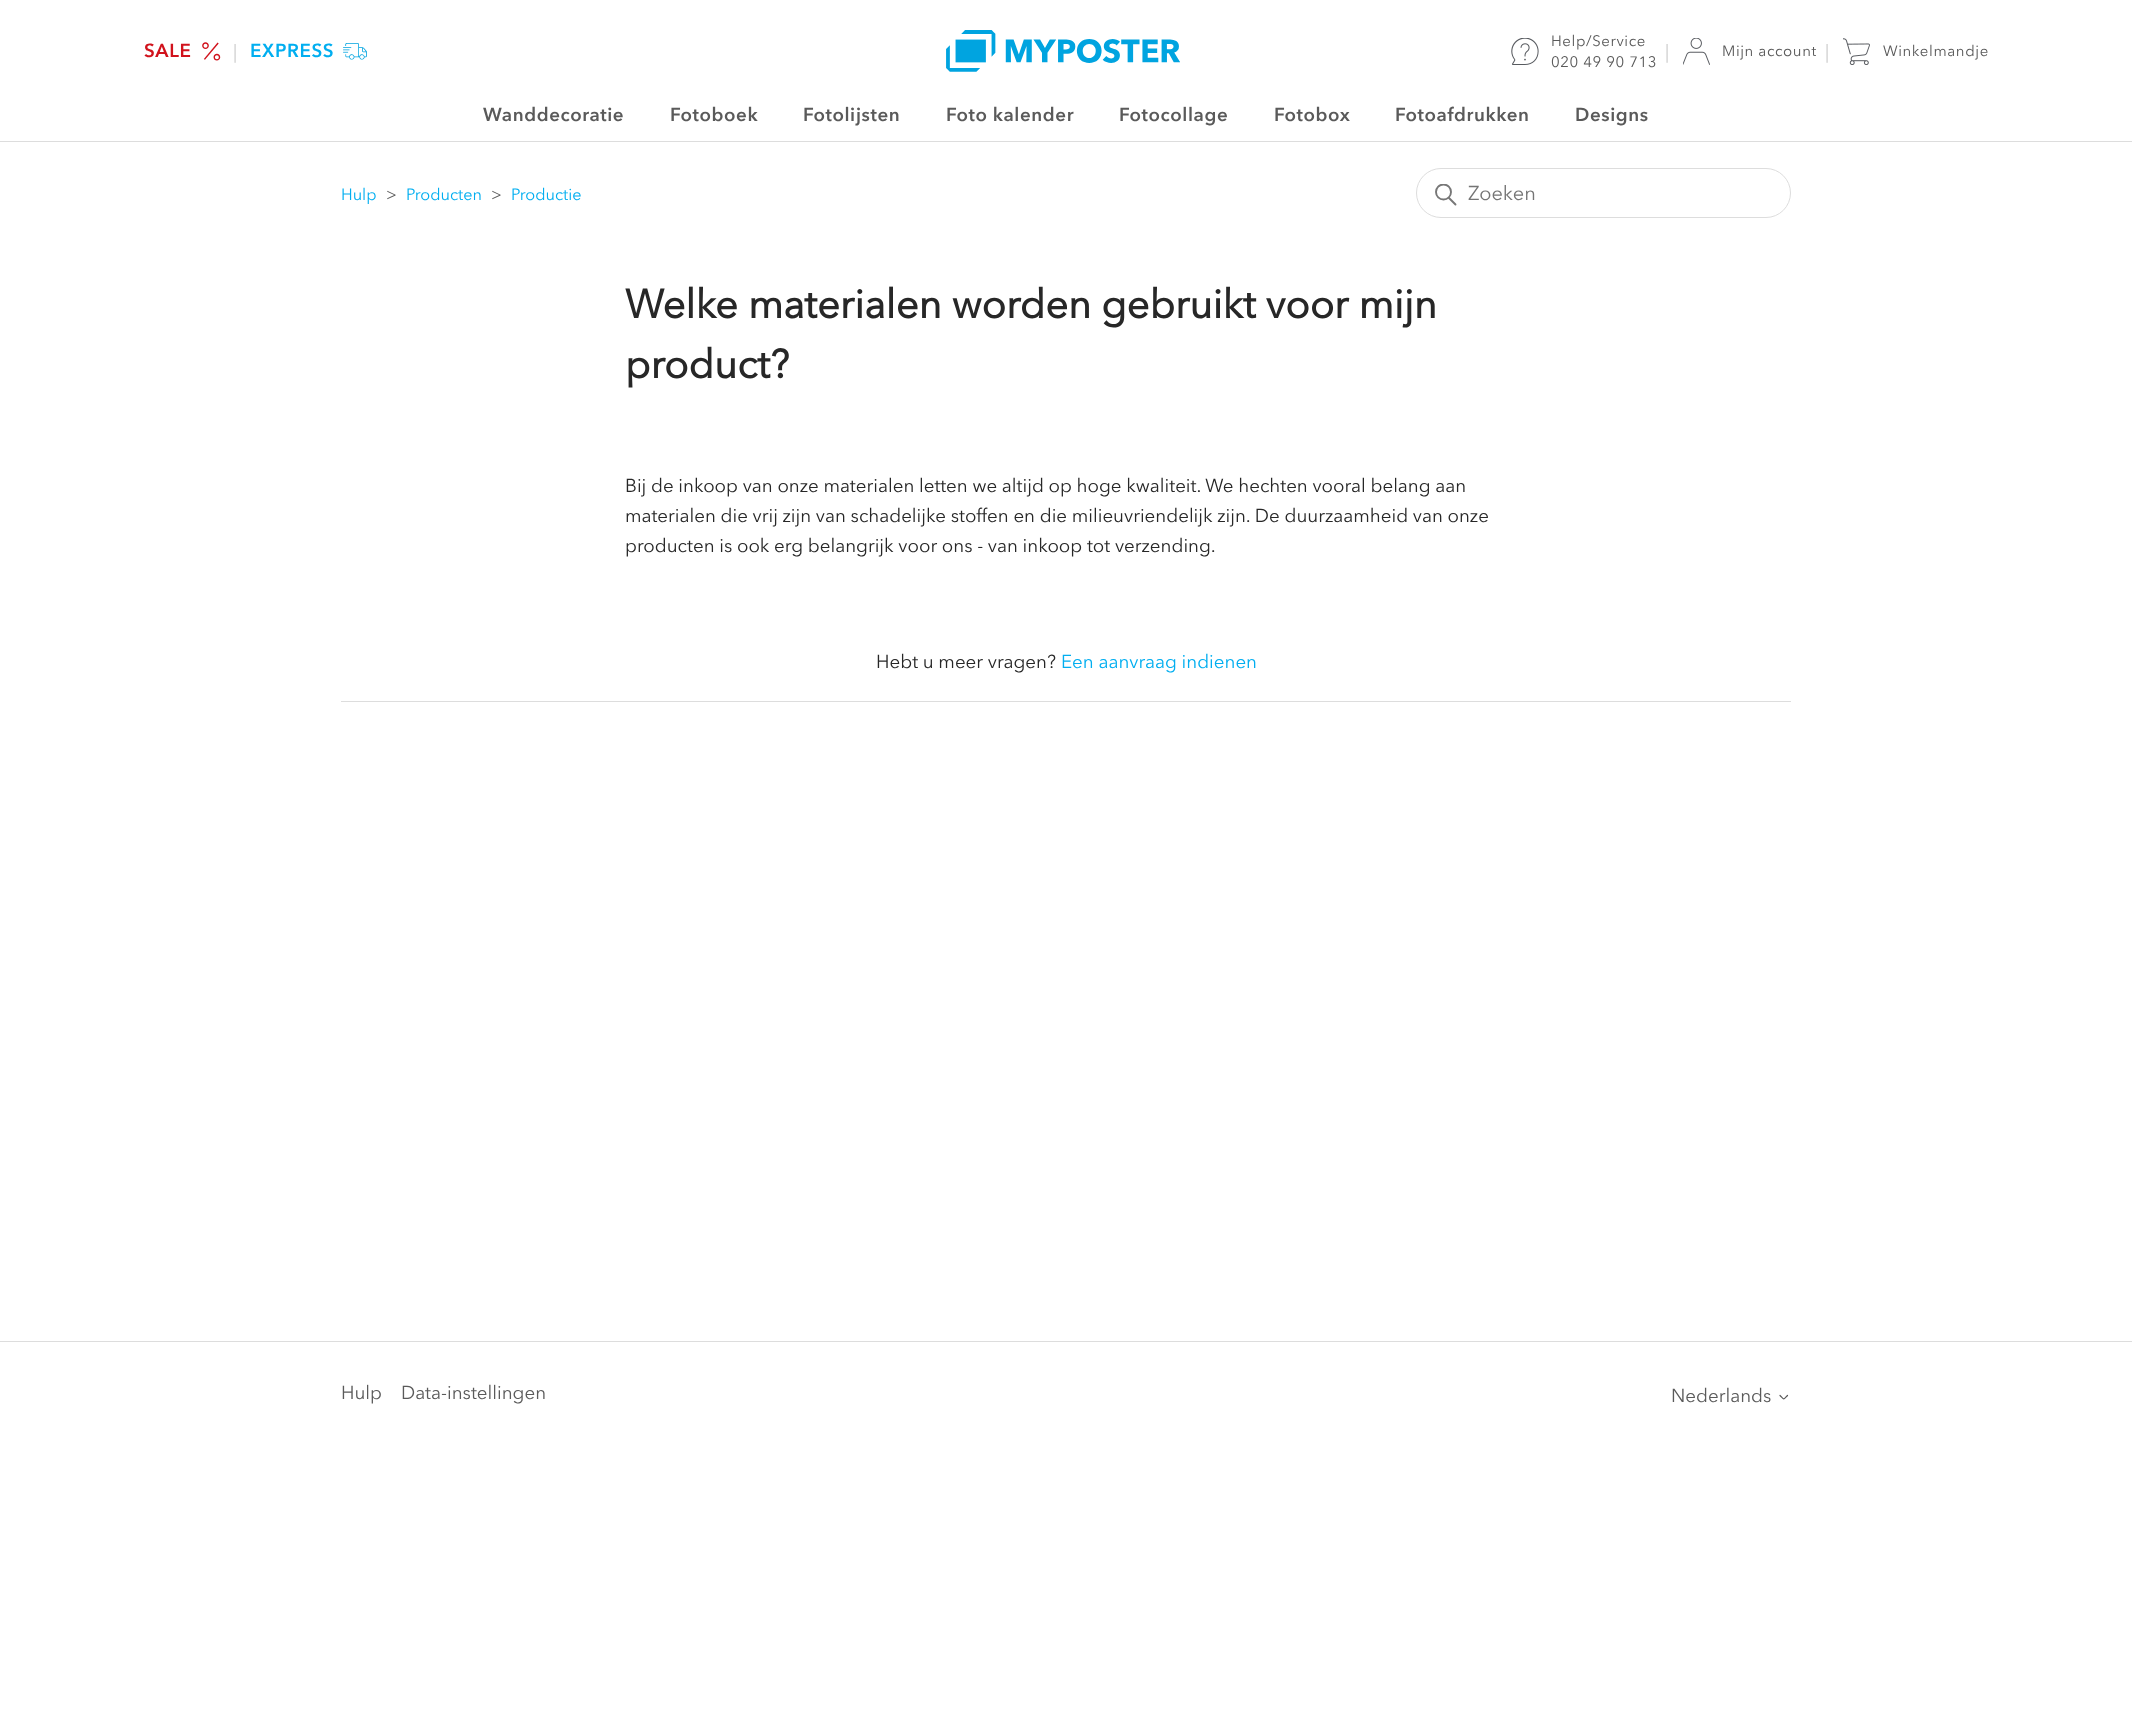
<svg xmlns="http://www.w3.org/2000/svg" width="2132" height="1729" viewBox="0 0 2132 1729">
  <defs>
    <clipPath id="clip1"><rect x="1435" y="184" width="23" height="22"/></clipPath>
  </defs>
  <rect width="100%" height="100%" fill="rgb(255,255,255)"/>
  <text x="144" y="57" font-family="'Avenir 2'" font-size="18.75" font-weight="bold" letter-spacing="0.6" fill="rgb(209,18,28)">SALE</text>
  <image x="202" y="42" width="19" height="19" href="pic1.png"/>
  <text x="233" y="58" font-family="Avenir" font-size="18.75" letter-spacing="0.6" fill="rgb(204,204,204)">|</text>
  <text x="250" y="57" font-family="'Avenir 2'" font-size="18.75" font-weight="bold" letter-spacing="0.6" fill="rgb(1,174,240)">EXPRESS</text>
  <image x="343" y="43" width="24" height="17" href="pic2.png"/>
  <image x="946" y="30" width="234" height="42" href="pic3.png"/>
  <image x="1511" y="38" width="28" height="27" href="pic4.png"/>
  <g font-family="Avenir" font-size="15" letter-spacing="0.6" fill="rgb(90,90,90)">
    <text>
      <tspan x="1551" y="46">Help/Service</tspan>
      <tspan x="1551" y="67">020 49 90 713</tspan>
    </text>
  </g>
  <text x="1665" y="58" font-family="Avenir" font-size="18.75" letter-spacing="0.6" fill="rgb(204,204,204)">|</text>
  <image x="1683" y="38" width="27" height="27" href="pic5.png"/>
  <text x="1722" y="56" font-family="Avenir" font-size="15" letter-spacing="0.6" fill="rgb(90,90,90)">Mijn account</text>
  <text x="1825" y="58" font-family="Avenir" font-size="18.75" letter-spacing="0.6" fill="rgb(204,204,204)">|</text>
  <image x="1843" y="38" width="27" height="27" href="pic6.png"/>
  <text x="1883" y="56" font-family="Avenir" font-size="15" letter-spacing="0.6" fill="rgb(90,90,90)">Winkelmandje</text>
  <g font-family="'Avenir 2'" font-size="18.75" font-weight="bold" letter-spacing="0.6" fill="rgb(90,90,90)">
    <text x="483" y="121">Wanddecoratie</text>
    <text x="670" y="121">Fotoboek</text>
    <text x="803" y="121">Fotolijsten</text>
    <text x="946" y="121">Foto kalender</text>
    <text x="1119" y="121">Fotocollage</text>
    <text x="1274" y="121">Fotobox</text>
    <text x="1395" y="121">Fotoafdrukken</text>
    <text x="1575" y="121">Designs</text>
  </g>
  <rect x="0" y="141" width="2132" height="1" fill="rgb(221,221,221)"/>
  <text x="341" y="200" font-family="Avenir" font-size="16.25" fill="rgb(1,174,240)">Hulp</text>
  <text x="386" y="200" font-family="Avenir" font-size="16.25" fill="rgb(90,90,90)">&gt;</text>
  <text x="406" y="200" font-family="Avenir" font-size="16.25" fill="rgb(1,174,240)">Producten</text>
  <text x="491" y="200" font-family="Avenir" font-size="16.25" fill="rgb(90,90,90)">&gt;</text>
  <text x="511" y="200" font-family="Avenir" font-size="16.25" fill="rgb(1,174,240)">Productie</text>
  <rect x="1416.5" y="168.5" width="374" height="49" rx="24.5" fill="none" stroke="rgb(221,221,221)"/>
  <g clip-path="url(#clip1)">
    <circle cx="1443.5" cy="192" r="7.5" fill="none" stroke="rgb(119,119,119)" stroke-width="1.9"/>
  </g>
  <path d="M1455.5 204.5L1449 198" fill="none" stroke="rgb(119,119,119)" stroke-width="1.9" stroke-linecap="round"/>
  <text x="1468" y="200" font-family="Avenir" font-size="20" fill="rgb(117,117,117)">Zoeken</text>
  <g font-family="Avenir" font-size="40" font-weight="bold" fill="rgb(39,39,39)">
    <text>
      <tspan x="625" y="318">Welke materialen worden gebruikt voor mijn</tspan>
      <tspan x="625" y="378">product?</tspan>
    </text>
  </g>
  <g font-family="Avenir" font-size="18.75" fill="rgb(39,39,39)">
    <text>
      <tspan x="625" y="492">Bij de inkoop van onze materialen letten we altijd op hoge kwaliteit. We hechten vooral belang aan</tspan>
      <tspan x="625" y="522">materialen die vrij zijn van schadelijke stoffen en die milieuvriendelijk zijn. De duurzaamheid van onze</tspan>
      <tspan x="625" y="552">producten is ook erg belangrijk voor ons - van inkoop tot verzending.</tspan>
    </text>
    <text x="876" y="668">Hebt u meer vragen?</text>
  </g>
  <text x="1061" y="668" font-family="Avenir" font-size="18.75" fill="rgb(1,174,240)">Een aanvraag indienen</text>
  <rect x="341" y="701" width="1450" height="1" fill="rgb(221,221,221)"/>
  <rect x="0" y="1341" width="2132" height="1" fill="rgb(221,221,221)"/>
  <g font-family="Avenir" font-size="18.75" fill="rgb(90,90,90)">
    <text x="341" y="1399">Hulp</text>
    <text x="401" y="1399">Data-instellingen</text>
    <text x="1671" y="1402">Nederlands</text>
  </g>
  <path d="M1780 1395.5C1784.5 1400 1783 1400 1787.5 1395.5" fill="none" stroke="rgb(90,90,90)" stroke-width="1.2" stroke-linecap="round"/>
</svg>
